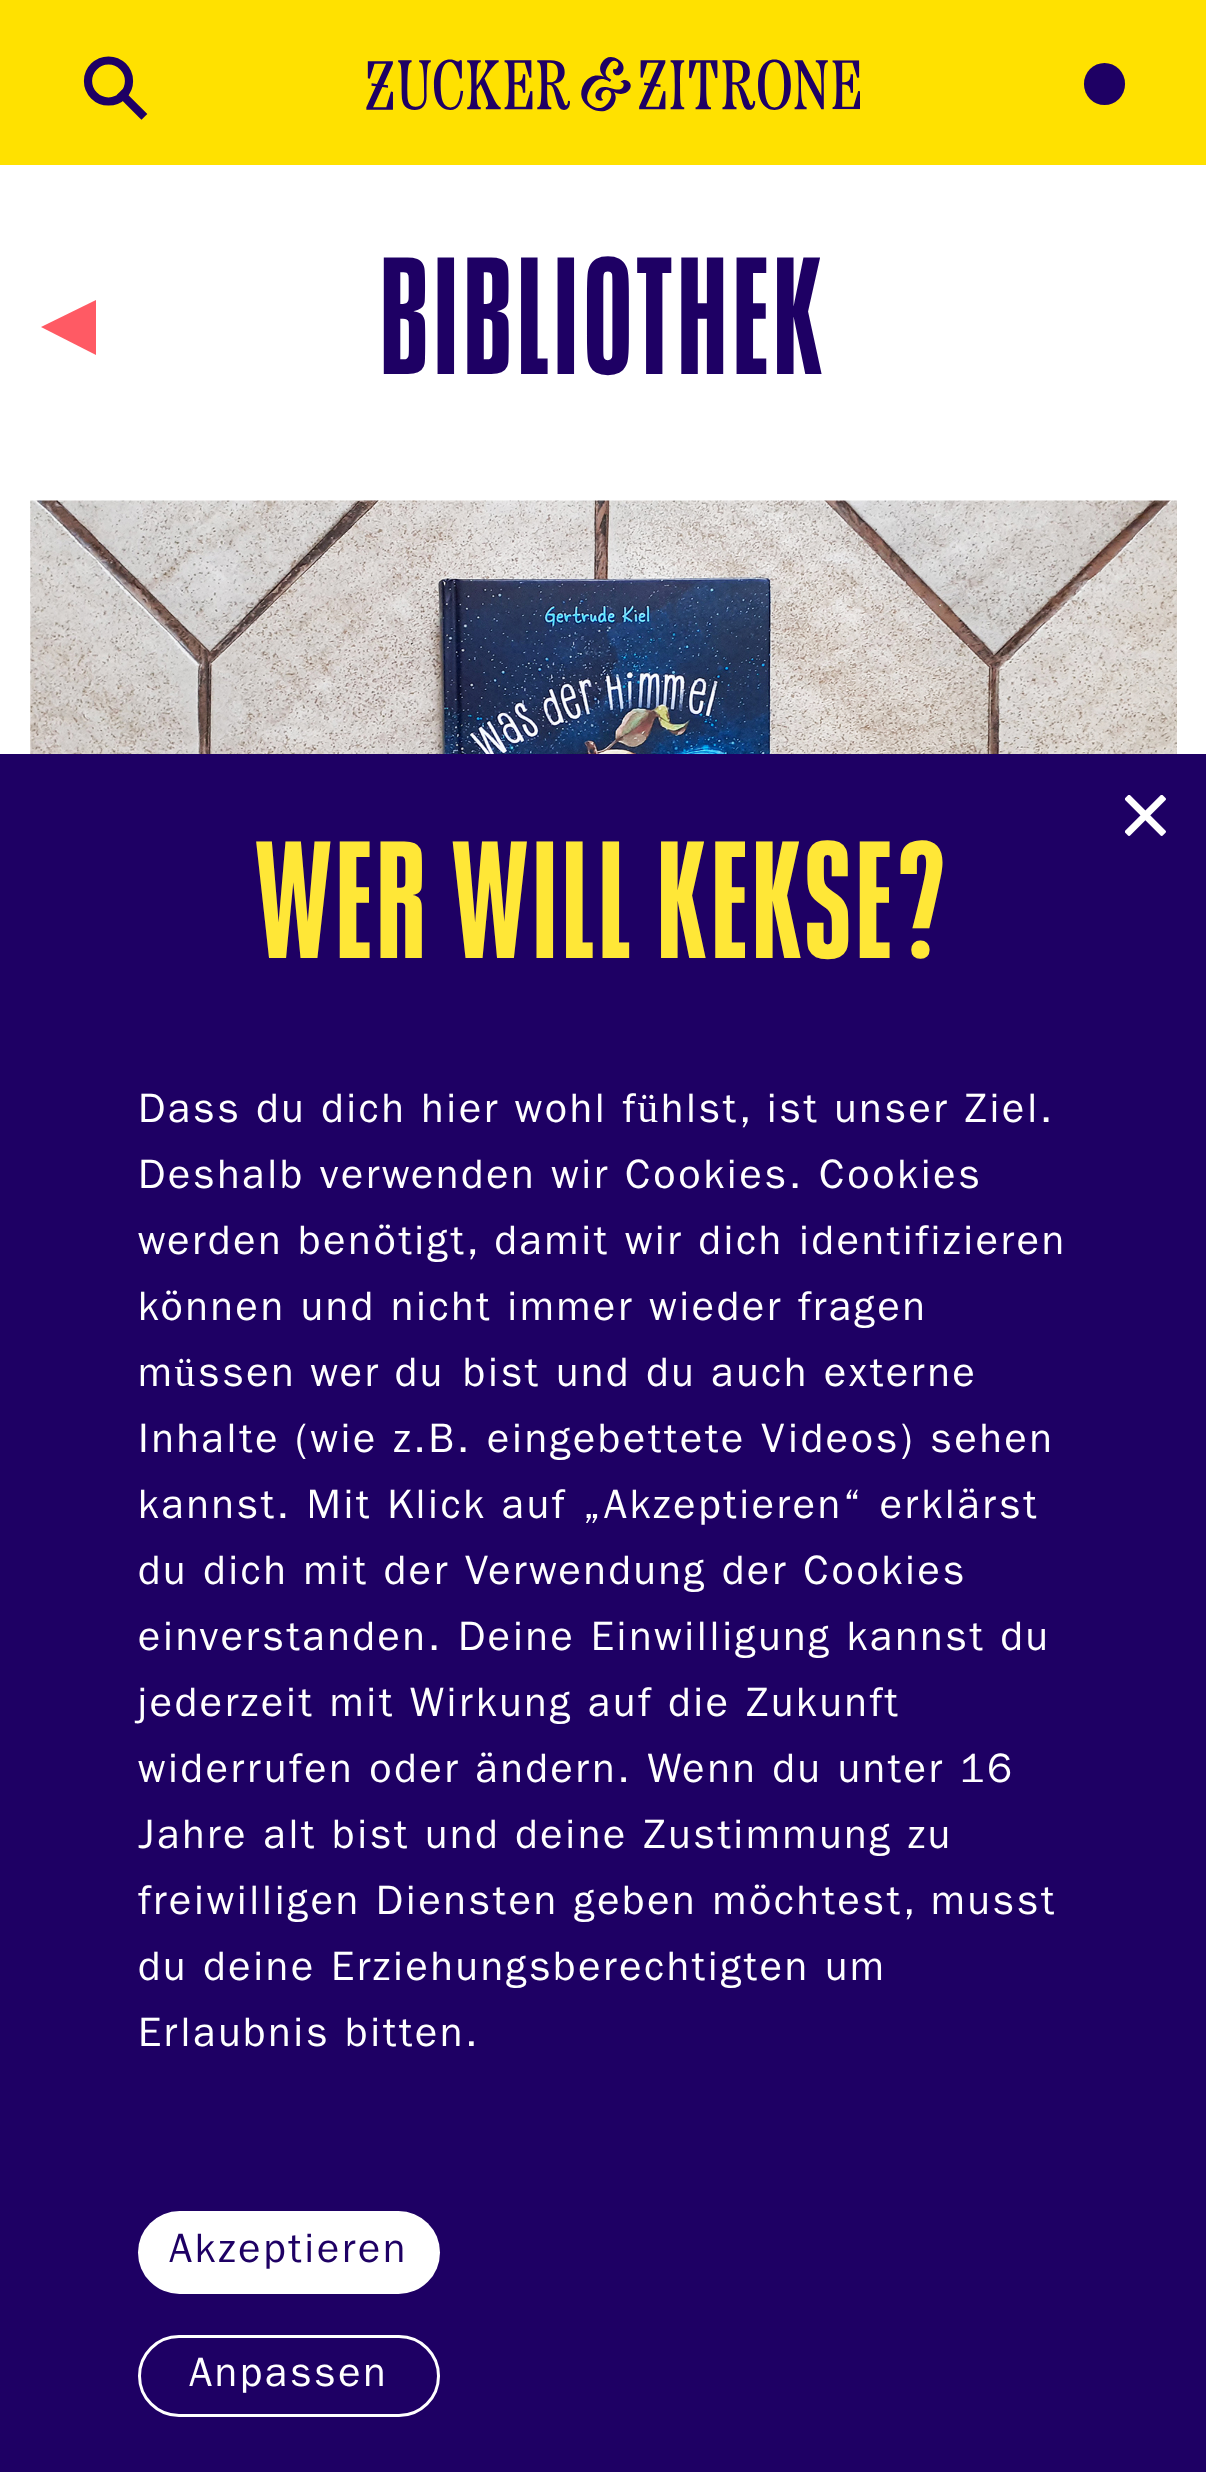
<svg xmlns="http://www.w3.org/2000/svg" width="1206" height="2472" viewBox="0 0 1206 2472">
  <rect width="100%" height="100%" fill="rgb(255,255,255)"/>
  <rect x="0" y="0" width="1206" height="165" fill="rgb(255,225,0)"/>
  <circle cx="108.5" cy="81" r="20.5" fill="none" stroke="rgb(30,0,100)" stroke-width="8.2"/>
  <path d="M141.5 114L122.5 95" fill="none" stroke="rgb(30,0,100)" stroke-width="8.2" stroke-linecap="square"/>
  <image x="366" y="57" width="494" height="55" href="pic1.png"/>
  <rect x="1084" y="63" width="41" height="42" rx="20.5" fill="rgb(30,0,100)"/>
  <path d="M41 327L96 300V355Z" fill="rgb(255,90,100)" fill-rule="evenodd"/>
  <text x="380" y="374" font-family="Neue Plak" font-size="165" font-weight="bold" letter-spacing="5.5" fill="rgb(30,0,100)">BIBLIOTHEK</text>
  <image x="30" y="500" width="1147" height="254" href="pic2.png"/>
  <rect x="0" y="754" width="1206" height="1718" fill="rgb(30,0,100)"/>
  <image x="1125" y="795" width="41" height="41" href="pic3.png"/>
  <text x="256" y="958" font-family="Neue Plak" font-size="165" font-weight="bold" letter-spacing="5.5" fill="rgb(255,231,55)">WER WILL KEKSE?</text>
  <g font-family="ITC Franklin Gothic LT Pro" font-size="41.25" letter-spacing="2.75" fill="rgb(255,255,255)">
    <text>
      <tspan x="138" y="1122" word-spacing="-0.25">Dass du dich hier wohl fühlst, ist unser Ziel.</tspan>
      <tspan x="138" y="1188">Deshalb verwenden wir Cookies. Cookies</tspan>
      <tspan x="138" y="1254">werden benötigt, damit wir dich identifizieren</tspan>
      <tspan x="138" y="1320">können und nicht immer wieder fragen</tspan>
      <tspan x="138" y="1386" word-spacing="-1">müssen wer du</tspan>
    </text>
    <text x="463" y="1386">bist und du auch externe</text>
    <text>
      <tspan x="138" y="1452">Inhalte (wie z.B. eingebettete Videos) sehen</tspan>
      <tspan x="138" y="1518">kannst. Mit Klick auf „Akzeptieren“ erklärst</tspan>
      <tspan x="138" y="1584">du dich mit der Verwendung der Cookies</tspan>
      <tspan x="138" y="1650">einverstanden. Deine Einwilligung kannst du</tspan>
      <tspan x="138" y="1716">jederzeit mit Wirkung auf die Zukunft</tspan>
      <tspan x="138" y="1782">widerrufen oder ändern. Wenn du unter 16</tspan>
      <tspan x="138" y="1848">Jahre alt bist und deine Zustimmung zu</tspan>
      <tspan x="138" y="1914">freiwilligen Diensten geben möchtest, musst</tspan>
      <tspan x="138" y="1980">du deine Erziehungsberechtigten um</tspan>
      <tspan x="138" y="2046">Erlaubnis bitten.</tspan>
    </text>
  </g>
  <rect x="138" y="2211" width="302" height="83" rx="41.5" fill="rgb(255,255,255)"/>
  <text x="169" y="2262" font-family="ITC Franklin Gothic LT Pro" font-size="41.25" letter-spacing="2.75" fill="rgb(30,0,100)">Akzeptieren</text>
  <rect x="139.5" y="2336.5" width="299" height="79" rx="39.5" fill="none" stroke="rgb(255,255,255)" stroke-width="3"/>
  <text x="189" y="2386" font-family="ITC Franklin Gothic LT Pro" font-size="41.25" letter-spacing="2.75" fill="rgb(255,255,255)">Anpassen</text>
</svg>
